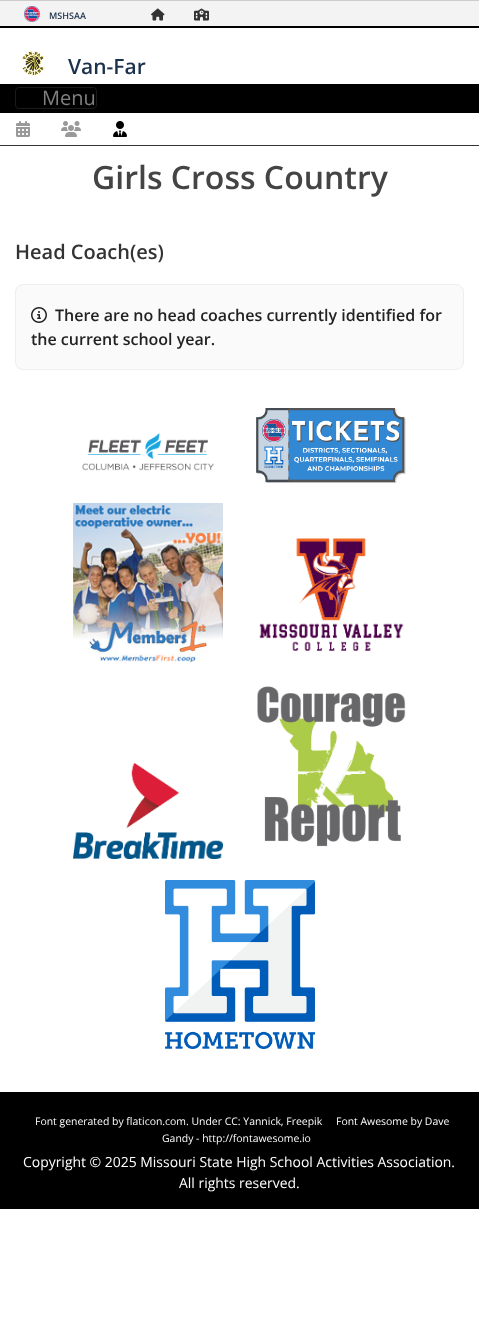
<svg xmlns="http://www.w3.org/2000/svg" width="479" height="1335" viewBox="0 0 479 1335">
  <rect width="100%" height="100%" fill="rgb(255,255,255)"/>
  <rect x="0" y="0" width="479" height="1" fill="rgb(204,204,204)"/>
  <rect x="0" y="1" width="479" height="25" fill="rgb(243,243,243)"/>
  <rect x="0" y="26" width="479" height="2" fill="rgb(0,0,0)"/>
  <image x="24" y="6" width="16" height="16" href="pic1.png"/>
  <text x="49" y="19" font-family="Open Sans" font-size="9" font-weight="600" fill="rgb(28,49,76)">MSHSAA</text>
  <image x="151" y="8" width="14" height="13" href="pic2.png"/>
  <image x="194" y="8" width="15" height="13" href="pic3.png"/>
  <image x="21" y="51" width="23" height="25" href="pic4.png"/>
  <text x="68" y="74" font-family="Open Sans" font-size="21" font-weight="600" fill="rgb(28,49,76)">Van-Far</text>
  <rect x="0" y="84" width="479" height="29" fill="rgb(0,0,0)"/>
  <rect x="15.5" y="87.5" width="81" height="21" rx="3.5" fill="none" stroke="rgb(26,26,26)"/>
  <text x="42" y="105" font-family="Open Sans" font-size="20" fill="rgb(128,128,128)">Menu</text>
  <rect x="0" y="145" width="479" height="1" fill="rgb(51,51,51)"/>
  <image x="16" y="121" width="14" height="16" href="pic5.png"/>
  <image x="61" y="121" width="20" height="16" href="pic6.png"/>
  <image x="113" y="121" width="14" height="16" href="pic7.png"/>
  <text x="92" y="189" font-family="Open Sans" font-size="32" font-weight="600" fill="rgb(68,68,68)">Girls Cross Country</text>
  <text x="15" y="259" font-family="Open Sans" font-size="20" font-weight="600" fill="rgb(51,51,51)">Head Coach(es)</text>
  <rect x="15.5" y="284.5" width="448" height="85" rx="7.5" fill="rgb(250,250,250)" stroke="rgb(238,238,238)"/>
  <image x="31" y="307" width="16" height="16" href="pic8.png"/>
  <g font-family="Open Sans" font-size="16" font-weight="600" fill="rgb(34,34,34)">
    <text x="55" y="321">There are no head coaches currently identified for</text>
    <text x="31" y="345">the current school year.</text>
  </g>
  <image x="82" y="433" width="132" height="38" href="pic9.png"/>
  <image x="256" y="408" width="150" height="75" href="pic10.png"/>
  <image x="73" y="503" width="150" height="160" href="pic11.png"/>
  <image x="259" y="538" width="145" height="113" href="pic12.png"/>
  <image x="73" y="763" width="150" height="96" href="pic13.png"/>
  <image x="257" y="686" width="149" height="161" href="pic14.png"/>
  <image x="165" y="880" width="150" height="169" href="pic15.png"/>
  <rect x="0" y="1092" width="479" height="117" fill="rgb(0,0,0)"/>
  <g font-family="Open Sans" font-size="10.45" fill="rgb(255,255,255)">
    <text x="35" y="1125">Font generated by flaticon.com. Under CC: Yannick, Freepik</text>
    <text x="336" y="1125">Font Awesome by Dave</text>
    <text x="162" y="1142">Gandy - http://fontawesome.io</text>
  </g>
  <g font-family="Open Sans" font-size="13.95" fill="rgb(255,255,255)">
    <text x="23" y="1167">Copyright © 2025 Missouri State High School Activities Association.</text>
    <text x="179" y="1188">All rights reserved.</text>
  </g>
</svg>
